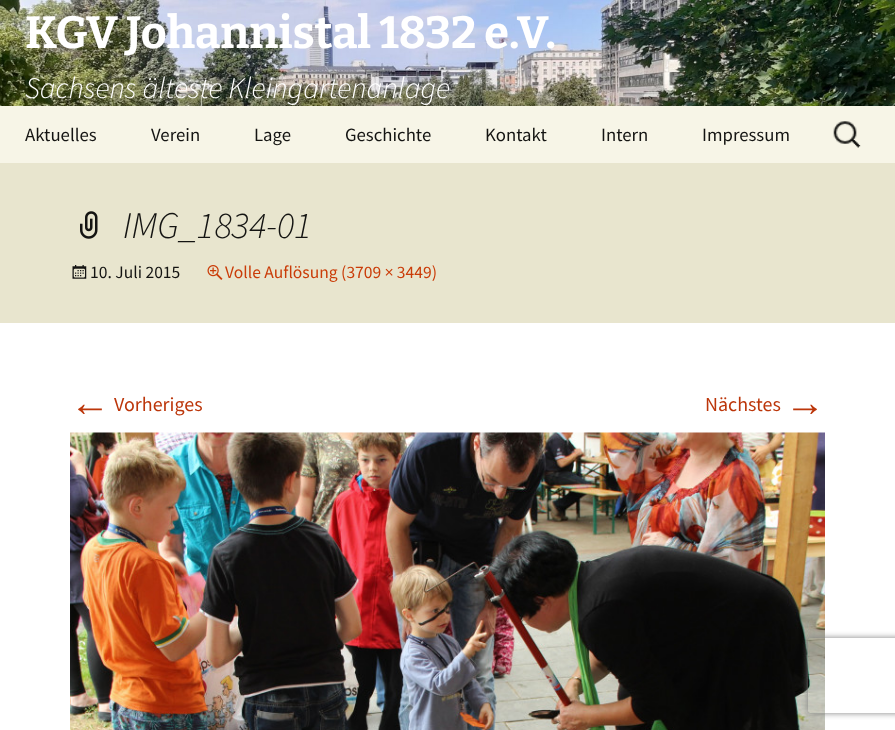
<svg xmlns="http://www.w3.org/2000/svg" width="895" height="730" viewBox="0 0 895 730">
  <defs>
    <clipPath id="clip1"><path d="M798 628H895V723H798ZM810.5 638H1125.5C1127 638 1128 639 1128 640.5V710.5C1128 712 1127 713 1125.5 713H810.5C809 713 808 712 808 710.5V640.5C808 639 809 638 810.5 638Z" clip-rule="evenodd"/></clipPath>
  </defs>
  <rect width="100%" height="100%" fill="rgb(255,255,255)"/>
  <image x="0" y="0" width="895" height="106" href="pic1.png"/>
  <text x="25" y="48" font-family="Bitter" font-size="45" font-weight="100" fill="rgb(255,255,255)">KGV Johannistal 1832 e.V.</text>
  <text x="25" y="98" font-family="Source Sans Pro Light" font-size="30" font-weight="300" font-style="italic" fill="rgb(255,255,255)">Sachsens älteste Kleingartenanlage</text>
  <rect x="0" y="106" width="895" height="57" fill="rgb(247,245,231)"/>
  <g font-family="Source Sans Pro" font-size="18.75" fill="rgb(20,20,18)">
    <text x="25" y="141">Aktuelles</text>
    <text x="151" y="141">Verein</text>
    <text x="254" y="141">Lage</text>
    <text x="345" y="141">Geschichte</text>
    <text x="485" y="141">Kontakt</text>
    <text x="601" y="141">Intern</text>
    <text x="702" y="141">Impressum</text>
  </g>
  <image x="833" y="121" width="28" height="27" href="pic2.png"/>
  <rect x="0" y="163" width="895" height="160" fill="rgb(232,229,206)"/>
  <image x="80" y="211" width="18" height="28" href="pic3.png"/>
  <text x="123" y="238" font-family="Source Sans Pro Light" font-size="37.5" font-weight="300" font-style="italic" fill="rgb(20,20,18)">IMG_1834-01</text>
  <image x="72" y="265" width="15" height="14" href="pic4.png"/>
  <text x="90" y="278" font-family="Source Sans Pro" font-size="17.5" fill="rgb(20,20,18)">10. Juli 2015</text>
  <image x="207" y="265" width="16" height="15" href="pic5.png"/>
  <text x="225" y="278" font-family="Source Sans Pro" font-size="17.5" fill="rgb(202,60,8)">Volle Auflösung (3709 × 3449)</text>
  <text x="70" y="416" font-family="Liberation Sans" font-size="40" fill="rgb(188,54,10)">←</text>
  <g font-family="Source Sans Pro" font-size="20" fill="rgb(188,54,10)">
    <text x="114" y="411">Vorheriges</text>
    <text x="705" y="411">Nächstes</text>
  </g>
  <text x="785" y="416" font-family="Liberation Sans" font-size="40" fill="rgb(188,54,10)">→</text>
  <image x="70" y="432" width="755" height="298" href="pic6.png"/>
  <g clip-path="url(#clip1)">
    <rect x="808" y="638" width="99" height="75" rx="2.5" fill="rgb(128,128,128)" filter="blur(3px)"/>
  </g>
</svg>
